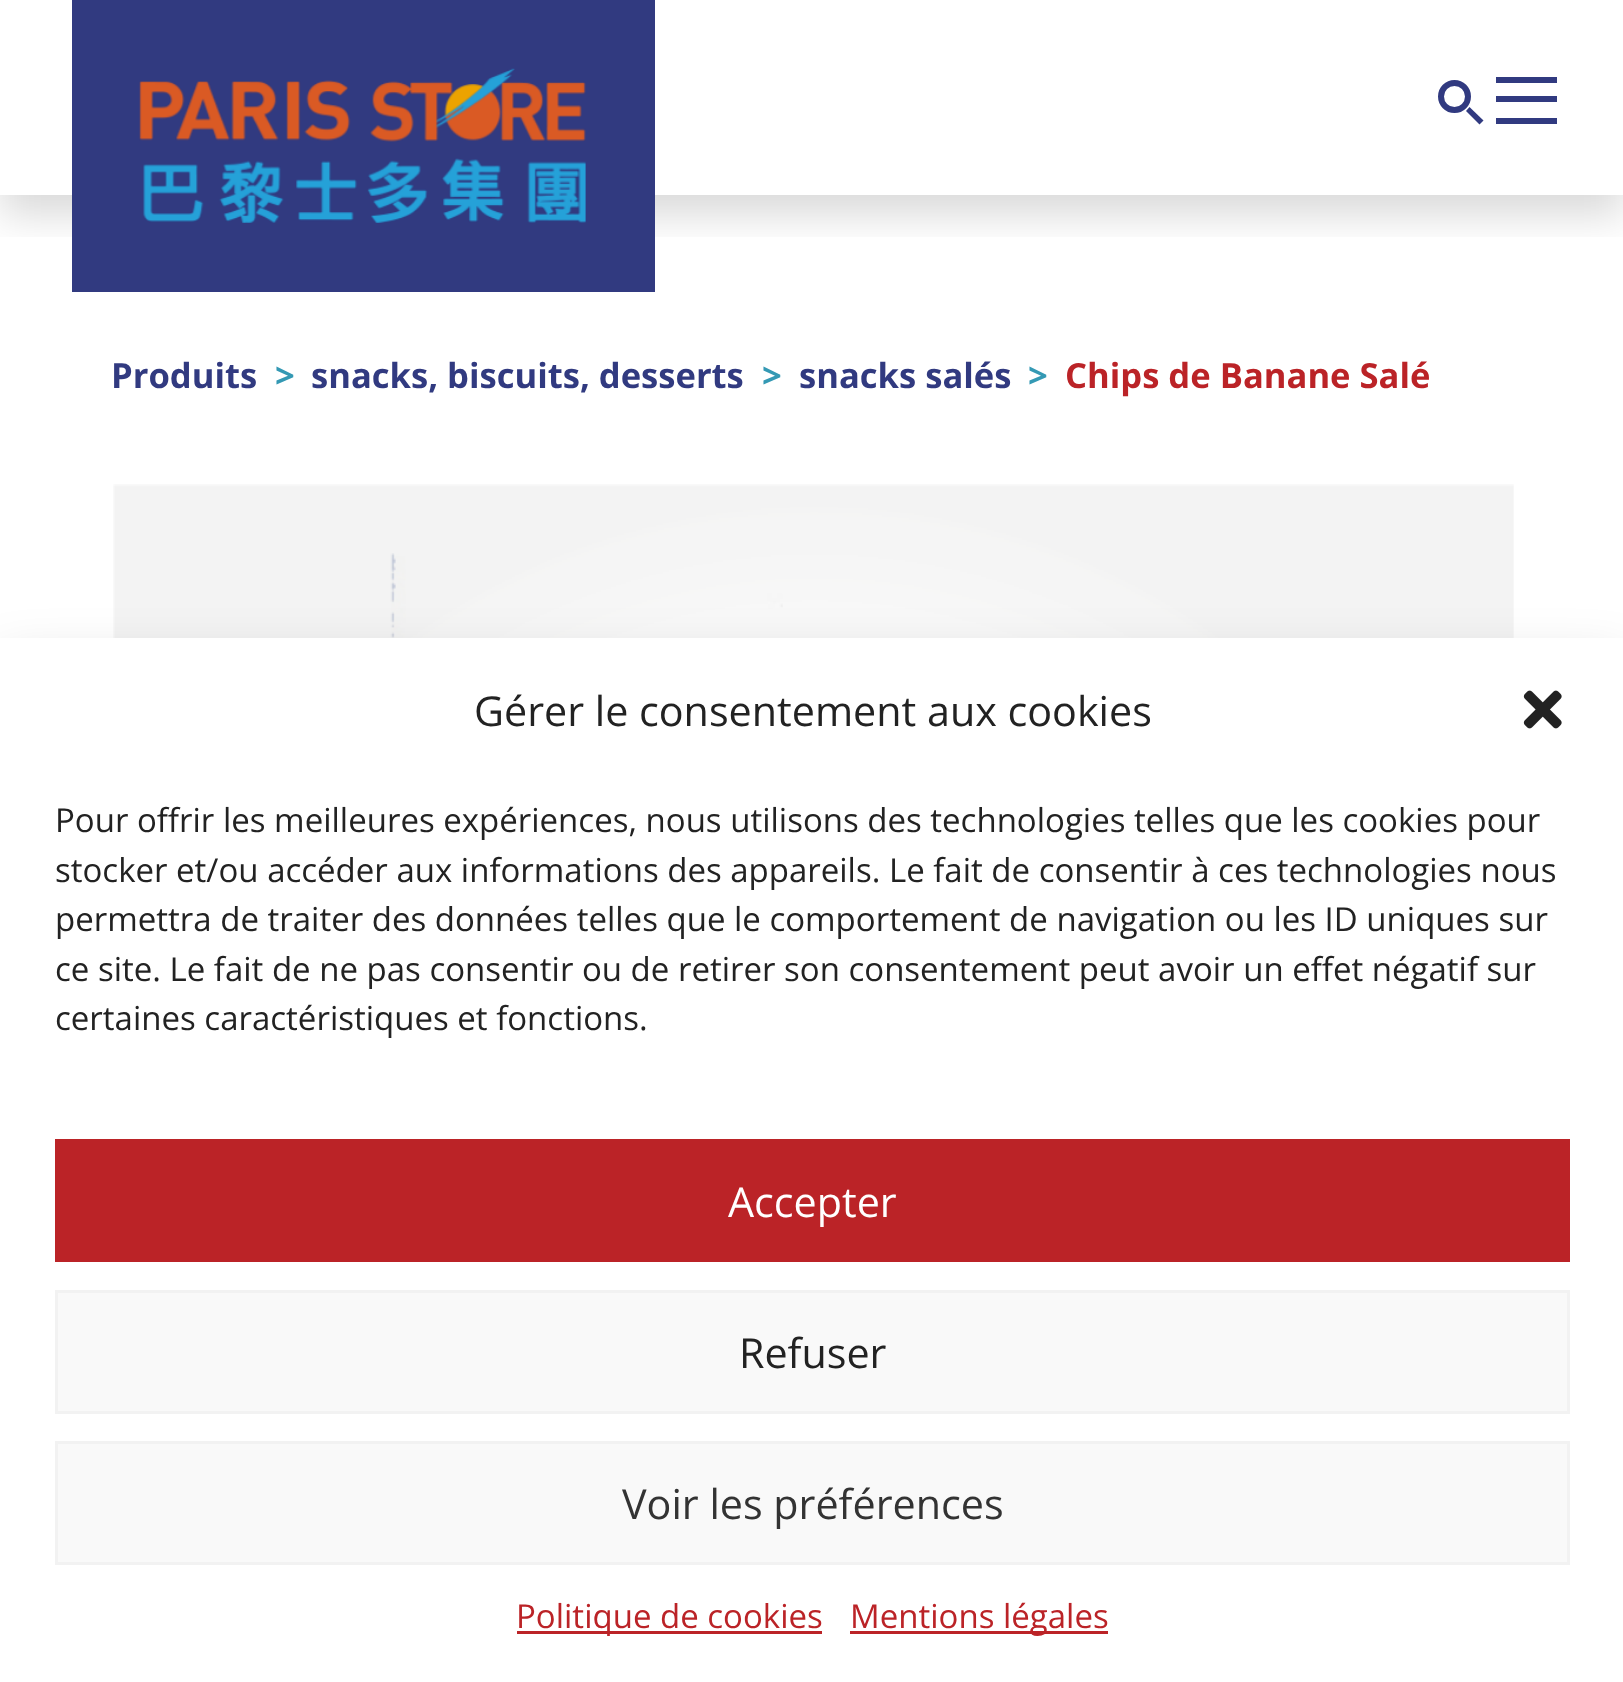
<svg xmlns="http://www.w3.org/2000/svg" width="1623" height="1682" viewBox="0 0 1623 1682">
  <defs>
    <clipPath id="clip1"><rect x="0" y="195" width="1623" height="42"/></clipPath>
  </defs>
  <rect width="100%" height="100%" fill="rgb(255,255,255)"/>
  <g clip-path="url(#clip1)">
    <rect x="0" y="19" width="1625" height="196" fill="rgba(0,0,0,0.15)" filter="blur(20px)"/>
  </g>
  <rect x="72" y="0" width="583" height="292" fill="rgb(49,58,128)"/>
  <image x="139" y="68" width="447" height="155" href="pic1.png"/>
  <circle cx="1454.5" cy="96.5" r="13.5" fill="none" stroke="rgb(49,58,128)" stroke-width="6"/>
  <path d="M1469.5 107L1483.5 120.5L1479.5 124.5L1466 111Z" fill="rgb(49,58,128)"/>
  <rect x="1496" y="96" width="61" height="6" fill="rgb(49,58,128)"/>
  <rect x="1496" y="77" width="61" height="6" fill="rgb(49,58,128)"/>
  <rect x="1496" y="118" width="61" height="6" fill="rgb(49,58,128)"/>
  <text x="111" y="388" font-family="Open Sans" font-size="34.6" font-weight="bold" fill="rgb(49,58,128)">Produits</text>
  <text x="275" y="388" font-family="Open Sans" font-size="34.6" font-weight="bold" fill="rgb(52,153,180)">&gt;</text>
  <text x="311" y="388" font-family="Open Sans" font-size="34.6" font-weight="bold" fill="rgb(49,58,128)">snacks, biscuits, desserts</text>
  <text x="762" y="388" font-family="Open Sans" font-size="34.6" font-weight="bold" fill="rgb(52,153,180)">&gt;</text>
  <text x="799" y="388" font-family="Open Sans" font-size="34.6" font-weight="bold" fill="rgb(49,58,128)">snacks salés</text>
  <text x="1028" y="388" font-family="Open Sans" font-size="34.6" font-weight="bold" fill="rgb(52,153,180)">&gt;</text>
  <text x="1065" y="388" font-family="Open Sans" font-size="34.6" font-weight="bold" fill="rgb(187,35,39)">Chips de Banane Salé</text>
  <image x="390" y="553" width="760" height="85" href="pic3.png"/>
  <image x="113" y="484" width="1401" height="154" href="pic2.png"/>
  <rect x="0" y="666" width="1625" height="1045" fill="rgba(0,0,0,0.19)" filter="blur(27.5px)"/>
  <rect x="0" y="638" width="1623" height="1044" fill="rgb(255,255,255)"/>
  <text x="474" y="726" font-family="Open Sans" font-size="41.25" fill="rgb(34,34,34)">Gérer le consentement aux cookies</text>
  <image x="1523" y="690" width="39" height="39" href="pic4.png"/>
  <g font-family="Open Sans" font-size="33" fill="rgb(34,34,34)">
    <text>
      <tspan x="55" y="832">Pour offrir les meilleures expériences, nous utilisons des technologies telles que les cookies pour</tspan>
      <tspan x="55" y="882">stocker et/ou accéder aux informations des appareils. Le fait de consentir à ces technologies nous</tspan>
      <tspan x="55" y="931">permettra de traiter des données telles que le comportement de navigation ou les ID uniques sur</tspan>
      <tspan x="55" y="981">ce site. Le fait de ne pas consentir ou de retirer son consentement peut avoir un effet négatif sur</tspan>
      <tspan x="55" y="1030">certaines caractéristiques et fonctions.</tspan>
    </text>
  </g>
  <rect x="55" y="1139" width="1515" height="123" fill="rgb(187,35,39)"/>
  <text x="728" y="1217" font-family="Open Sans" font-size="41.25" fill="rgb(255,255,255)">Accepter</text>
  <rect x="56.5" y="1291.5" width="1512" height="121" fill="rgb(249,249,249)" stroke="rgb(242,242,242)" stroke-width="3"/>
  <text x="739" y="1368" font-family="Open Sans" font-size="41.25" fill="rgb(34,34,34)">Refuser</text>
  <rect x="56.5" y="1442.5" width="1512" height="121" fill="rgb(249,249,249)" stroke="rgb(242,242,242)" stroke-width="3"/>
  <text x="622" y="1519" font-family="Open Sans" font-size="41.25" fill="rgb(51,51,51)">Voir les préférences</text>
  <rect x="517" y="1631" width="305" height="3" fill="rgb(187,35,39)"/>
  <text x="516" y="1628" font-family="Open Sans" font-size="33" fill="rgb(187,35,39)">Politique de cookies</text>
  <rect x="850" y="1631" width="258" height="3" fill="rgb(187,35,39)"/>
  <text x="850" y="1628" font-family="Open Sans" font-size="33" fill="rgb(187,35,39)">Mentions légales</text>
</svg>
